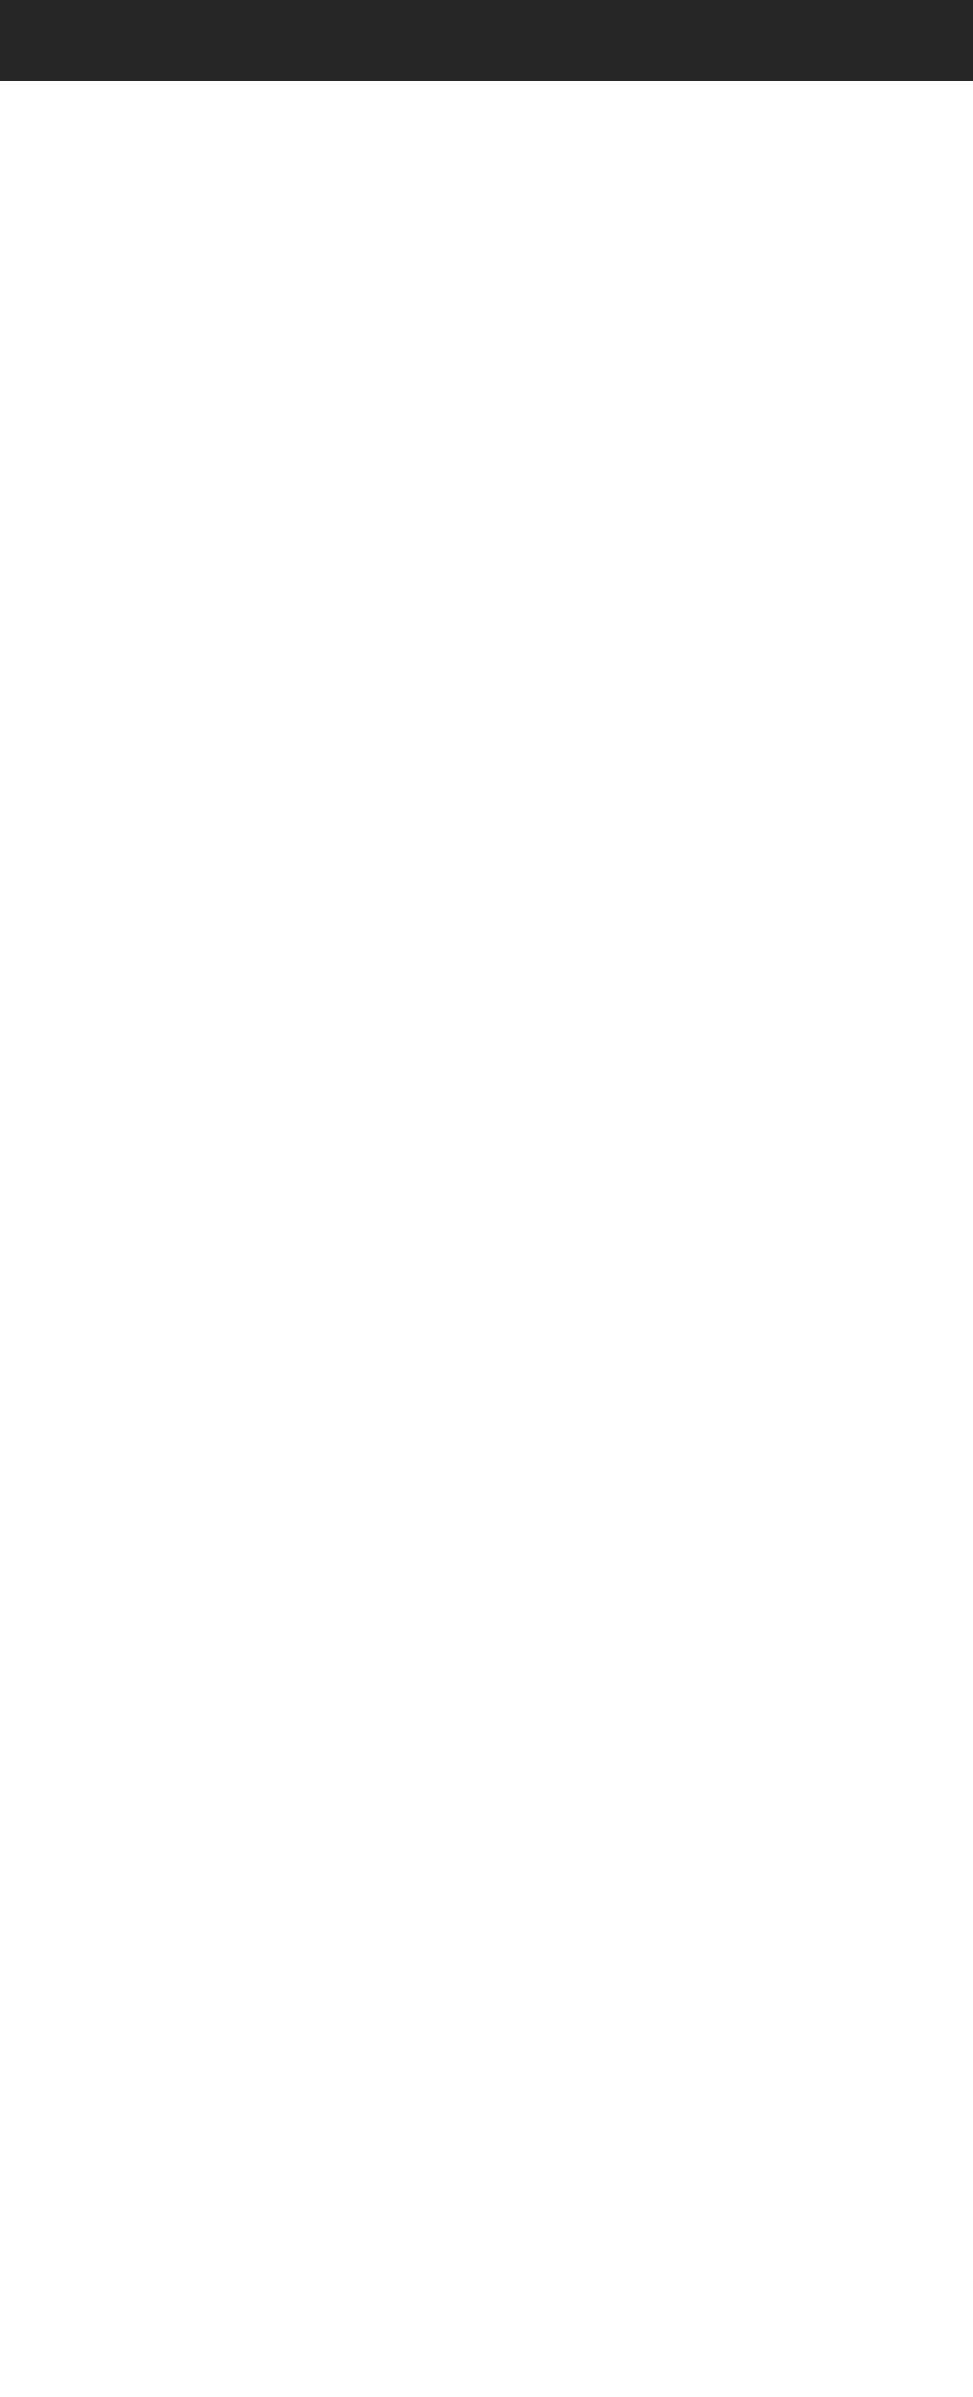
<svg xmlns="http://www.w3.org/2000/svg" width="973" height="2397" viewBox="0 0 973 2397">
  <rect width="100%" height="100%" fill="rgb(255,255,255)"/>
  <rect x="0" y="0" width="973" height="81" fill="rgb(38,38,38)"/>
</svg>
